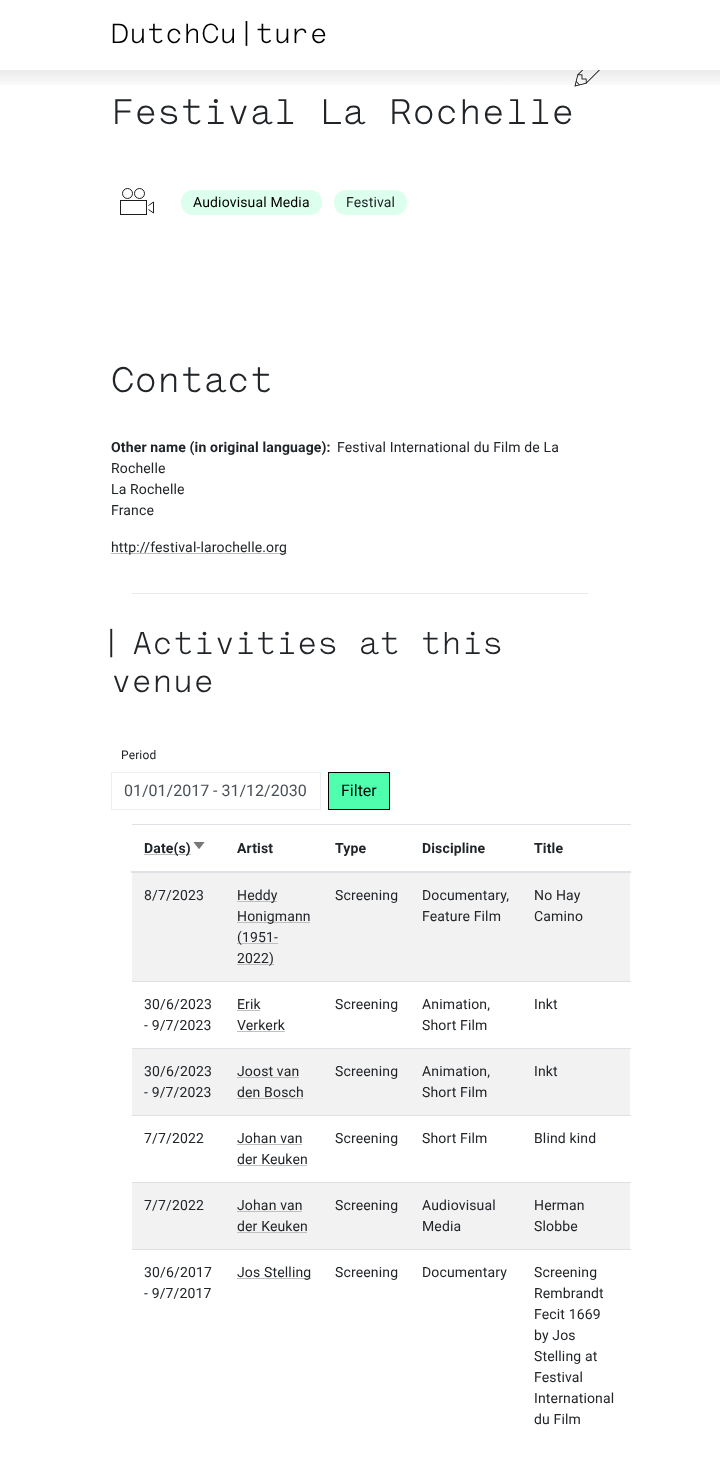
<svg xmlns="http://www.w3.org/2000/svg" width="720" height="1464" viewBox="0 0 720 1464">
  <defs>
    <linearGradient id="g1" gradientUnits="userSpaceOnUse" x1="360" y1="65" x2="360" y2="115"><stop offset="0" stop-color="rgb(0,0,0)" stop-opacity="0.1"/><stop offset="0.5" stop-color="rgb(0,0,0)" stop-opacity="0"/><stop offset="1" stop-color="rgb(0,0,0)" stop-opacity="0"/></linearGradient>
  </defs>
  <rect width="100%" height="100%" fill="rgb(255,255,255)"/>
  <text x="111" y="43" font-family="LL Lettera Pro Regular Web" font-size="28" letter-spacing="0.15" fill="rgb(0,0,0)">DutchCu|ture</text>
  <image x="574" y="70" width="26" height="17" href="pic1.png"/>
  <rect x="0" y="70" width="720" height="15" fill="url(#g1)"/>
  <text x="111" y="124" font-family="LL Lettera Pro Regular Web" font-size="36" letter-spacing="0.15" fill="rgb(33,37,41)">Festival La Rochelle</text>
  <circle cx="127.5" cy="193.5" r="5" fill="none" stroke="rgb(29,29,27)"/>
  <circle cx="139.5" cy="193.5" r="5" fill="none" stroke="rgb(29,29,27)"/>
  <rect x="120.5" y="200.5" width="26" height="14" fill="none" stroke="rgb(29,29,27)"/>
  <path d="M148.5 209.5L153.5 213V202L148.5 205.5" fill="none" stroke="rgb(29,29,27)"/>
  <rect x="181" y="190" width="141" height="25" rx="12" fill="rgb(221,255,237)"/>
  <text x="193" y="207" font-family="Roboto" font-size="14" letter-spacing="0.15" fill="rgb(0,0,0)">Audiovisual Media</text>
  <rect x="334" y="190" width="73" height="25" rx="12" fill="rgb(221,255,237)"/>
  <text x="346" y="207" font-family="Roboto" font-size="14" letter-spacing="0.15" fill="rgb(33,37,41)">Festival</text>
  <text x="111" y="392" font-family="LL Lettera Pro Regular Web" font-size="36" letter-spacing="0.15" fill="rgb(33,37,41)">Contact</text>
  <text x="111" y="452" font-family="Roboto" font-size="14" font-weight="bold" letter-spacing="0.15" fill="rgb(33,37,41)">Other name (in original language):</text>
  <g font-family="Roboto" font-size="14" letter-spacing="0.15" fill="rgb(33,37,41)">
    <text x="337" y="452">Festival International du Film de La</text>
    <text>
      <tspan x="111" y="473">Rochelle</tspan>
      <tspan x="111" y="494">La Rochelle</tspan>
      <tspan x="111" y="515">France</tspan>
    </text>
  </g>
  <rect x="111" y="553" width="176" height="1" fill="rgb(191,191,191)"/>
  <text x="111" y="552" font-family="Roboto" font-size="14" letter-spacing="0.15" fill="rgb(33,37,41)">http://festival-larochelle.org</text>
  <rect x="132" y="593" width="456" height="1" fill="rgb(233,233,233)"/>
  <g font-family="LL Lettera Pro Regular Web" font-size="32" letter-spacing="0.15" fill="rgb(33,37,41)">
    <text x="101" y="654">|</text>
    <text x="132" y="654">Activities at this</text>
    <text x="111" y="692">venue</text>
  </g>
  <text x="121" y="759" font-family="Roboto" font-size="12" letter-spacing="0.15" fill="rgb(33,37,41)">Period</text>
  <rect x="111.5" y="772.5" width="209" height="37" fill="none" stroke="rgb(238,238,238)"/>
  <text x="124" y="796" font-family="Roboto" font-size="16" fill="rgb(73,80,87)">01/01/2017 - 31/12/2030</text>
  <rect x="328.5" y="772.5" width="61" height="37" fill="rgb(79,255,174)" stroke="rgb(0,0,0)"/>
  <text x="341" y="796" font-family="Roboto" font-size="16" fill="rgb(0,0,0)">Filter</text>
  <rect x="144" y="854" width="47" height="1" fill="rgb(191,191,191)"/>
  <text x="144" y="853" font-family="Roboto" font-size="14" font-weight="bold" letter-spacing="0.15" fill="rgb(33,37,41)">Date(s)</text>
  <image x="193" y="842" width="12" height="7" href="pic2.png"/>
  <g font-family="Roboto" font-size="14" font-weight="bold" letter-spacing="0.15" fill="rgb(33,37,41)">
    <text x="237" y="853">Artist</text>
    <text x="335" y="853">Type</text>
    <text x="422" y="853">Discipline</text>
  </g>
  <rect x="132" y="824" width="499" height="1" fill="rgb(222,226,230)"/>
  <rect x="131" y="871" width="500" height="2" fill="rgb(222,226,230)"/>
  <text x="534" y="853" font-family="Roboto" font-size="14" font-weight="bold" letter-spacing="0.15" fill="rgb(33,37,41)">Title</text>
  <rect x="132" y="873" width="498" height="108" fill="rgb(242,242,242)"/>
  <text x="144" y="900" font-family="Roboto" font-size="14" letter-spacing="0.15" fill="rgb(33,37,41)">8/7/2023</text>
  <rect x="237" y="901" width="40" height="1" fill="rgb(191,191,191)"/>
  <text x="237" y="900" font-family="Roboto" font-size="14" letter-spacing="0.15" fill="rgb(33,37,41)">Heddy</text>
  <rect x="237" y="922" width="73" height="1" fill="rgb(191,191,191)"/>
  <text x="237" y="921" font-family="Roboto" font-size="14" letter-spacing="0.15" fill="rgb(33,37,41)">Honigmann</text>
  <rect x="237" y="943" width="41" height="1" fill="rgb(191,191,191)"/>
  <text x="237" y="942" font-family="Roboto" font-size="14" letter-spacing="0.15" fill="rgb(33,37,41)">(1951-</text>
  <rect x="237" y="964" width="37" height="1" fill="rgb(191,191,191)"/>
  <g font-family="Roboto" font-size="14" letter-spacing="0.15" fill="rgb(33,37,41)">
    <text x="237" y="963">2022)</text>
    <text x="335" y="900">Screening</text>
    <text>
      <tspan x="422" y="900">Documentary,</tspan>
      <tspan x="422" y="921">Feature Film</tspan>
    </text>
    <text>
      <tspan x="534" y="900">No Hay</tspan>
      <tspan x="534" y="921">Camino</tspan>
    </text>
    <text>
      <tspan x="144" y="1009">30/6/2023</tspan>
      <tspan x="144" y="1030">- 9/7/2023</tspan>
    </text>
    <text x="237" y="1009">Erik</text>
  </g>
  <rect x="237" y="1010" width="23" height="1" fill="rgb(191,191,191)"/>
  <text x="237" y="1030" font-family="Roboto" font-size="14" letter-spacing="0.15" fill="rgb(33,37,41)">Verkerk</text>
  <rect x="237" y="1031" width="48" height="1" fill="rgb(191,191,191)"/>
  <g font-family="Roboto" font-size="14" letter-spacing="0.15" fill="rgb(33,37,41)">
    <text x="335" y="1009">Screening</text>
    <text>
      <tspan x="422" y="1009">Animation,</tspan>
      <tspan x="422" y="1030">Short Film</tspan>
    </text>
  </g>
  <rect x="132" y="981" width="499" height="1" fill="rgb(222,226,230)"/>
  <text x="534" y="1009" font-family="Roboto" font-size="14" letter-spacing="0.15" fill="rgb(33,37,41)">Inkt</text>
  <rect x="132" y="1049" width="498" height="66" fill="rgb(242,242,242)"/>
  <g font-family="Roboto" font-size="14" letter-spacing="0.15" fill="rgb(33,37,41)">
    <text>
      <tspan x="144" y="1076">30/6/2023</tspan>
      <tspan x="144" y="1097">- 9/7/2023</tspan>
    </text>
    <text x="237" y="1076">Joost van</text>
  </g>
  <rect x="237" y="1077" width="62" height="1" fill="rgb(191,191,191)"/>
  <text x="237" y="1097" font-family="Roboto" font-size="14" letter-spacing="0.15" fill="rgb(33,37,41)">den Bosch</text>
  <rect x="237" y="1098" width="66" height="1" fill="rgb(191,191,191)"/>
  <g font-family="Roboto" font-size="14" letter-spacing="0.15" fill="rgb(33,37,41)">
    <text x="335" y="1076">Screening</text>
    <text>
      <tspan x="422" y="1076">Animation,</tspan>
      <tspan x="422" y="1097">Short Film</tspan>
    </text>
  </g>
  <rect x="132" y="1048" width="499" height="1" fill="rgb(222,226,230)"/>
  <g font-family="Roboto" font-size="14" letter-spacing="0.15" fill="rgb(33,37,41)">
    <text x="534" y="1076">Inkt</text>
    <text x="144" y="1143">7/7/2022</text>
    <text x="237" y="1143">Johan van</text>
  </g>
  <rect x="237" y="1144" width="65" height="1" fill="rgb(191,191,191)"/>
  <text x="237" y="1164" font-family="Roboto" font-size="14" letter-spacing="0.15" fill="rgb(33,37,41)">der Keuken</text>
  <rect x="237" y="1165" width="70" height="1" fill="rgb(191,191,191)"/>
  <g font-family="Roboto" font-size="14" letter-spacing="0.15" fill="rgb(33,37,41)">
    <text x="335" y="1143">Screening</text>
    <text x="422" y="1143">Short Film</text>
  </g>
  <rect x="132" y="1115" width="499" height="1" fill="rgb(222,226,230)"/>
  <text x="534" y="1143" font-family="Roboto" font-size="14" letter-spacing="0.15" fill="rgb(33,37,41)">Blind kind</text>
  <rect x="132" y="1183" width="498" height="66" fill="rgb(242,242,242)"/>
  <g font-family="Roboto" font-size="14" letter-spacing="0.15" fill="rgb(33,37,41)">
    <text x="144" y="1210">7/7/2022</text>
    <text x="237" y="1210">Johan van</text>
  </g>
  <rect x="237" y="1211" width="65" height="1" fill="rgb(191,191,191)"/>
  <text x="237" y="1231" font-family="Roboto" font-size="14" letter-spacing="0.15" fill="rgb(33,37,41)">der Keuken</text>
  <rect x="237" y="1232" width="70" height="1" fill="rgb(191,191,191)"/>
  <g font-family="Roboto" font-size="14" letter-spacing="0.15" fill="rgb(33,37,41)">
    <text x="335" y="1210">Screening</text>
    <text>
      <tspan x="422" y="1210">Audiovisual</tspan>
      <tspan x="422" y="1231">Media</tspan>
    </text>
  </g>
  <rect x="132" y="1182" width="499" height="1" fill="rgb(222,226,230)"/>
  <g font-family="Roboto" font-size="14" letter-spacing="0.15" fill="rgb(33,37,41)">
    <text>
      <tspan x="534" y="1210">Herman</tspan>
      <tspan x="534" y="1231">Slobbe</tspan>
    </text>
    <text>
      <tspan x="144" y="1277">30/6/2017</tspan>
      <tspan x="144" y="1298">- 9/7/2017</tspan>
    </text>
  </g>
  <rect x="237" y="1278" width="74" height="1" fill="rgb(191,191,191)"/>
  <g font-family="Roboto" font-size="14" letter-spacing="0.15" fill="rgb(33,37,41)">
    <text x="237" y="1277">Jos Stelling</text>
    <text x="335" y="1277">Screening</text>
    <text x="422" y="1277">Documentary</text>
  </g>
  <rect x="132" y="1249" width="499" height="1" fill="rgb(222,226,230)"/>
  <g font-family="Roboto" font-size="14" letter-spacing="0.15" fill="rgb(33,37,41)">
    <text>
      <tspan x="534" y="1277">Screening</tspan>
      <tspan x="534" y="1298">Rembrandt</tspan>
      <tspan x="534" y="1319">Fecit 1669</tspan>
      <tspan x="534" y="1340">by Jos</tspan>
      <tspan x="534" y="1361">Stelling at</tspan>
      <tspan x="534" y="1382">Festival</tspan>
      <tspan x="534" y="1403">International</tspan>
      <tspan x="534" y="1424">du Film</tspan>
    </text>
  </g>
</svg>
